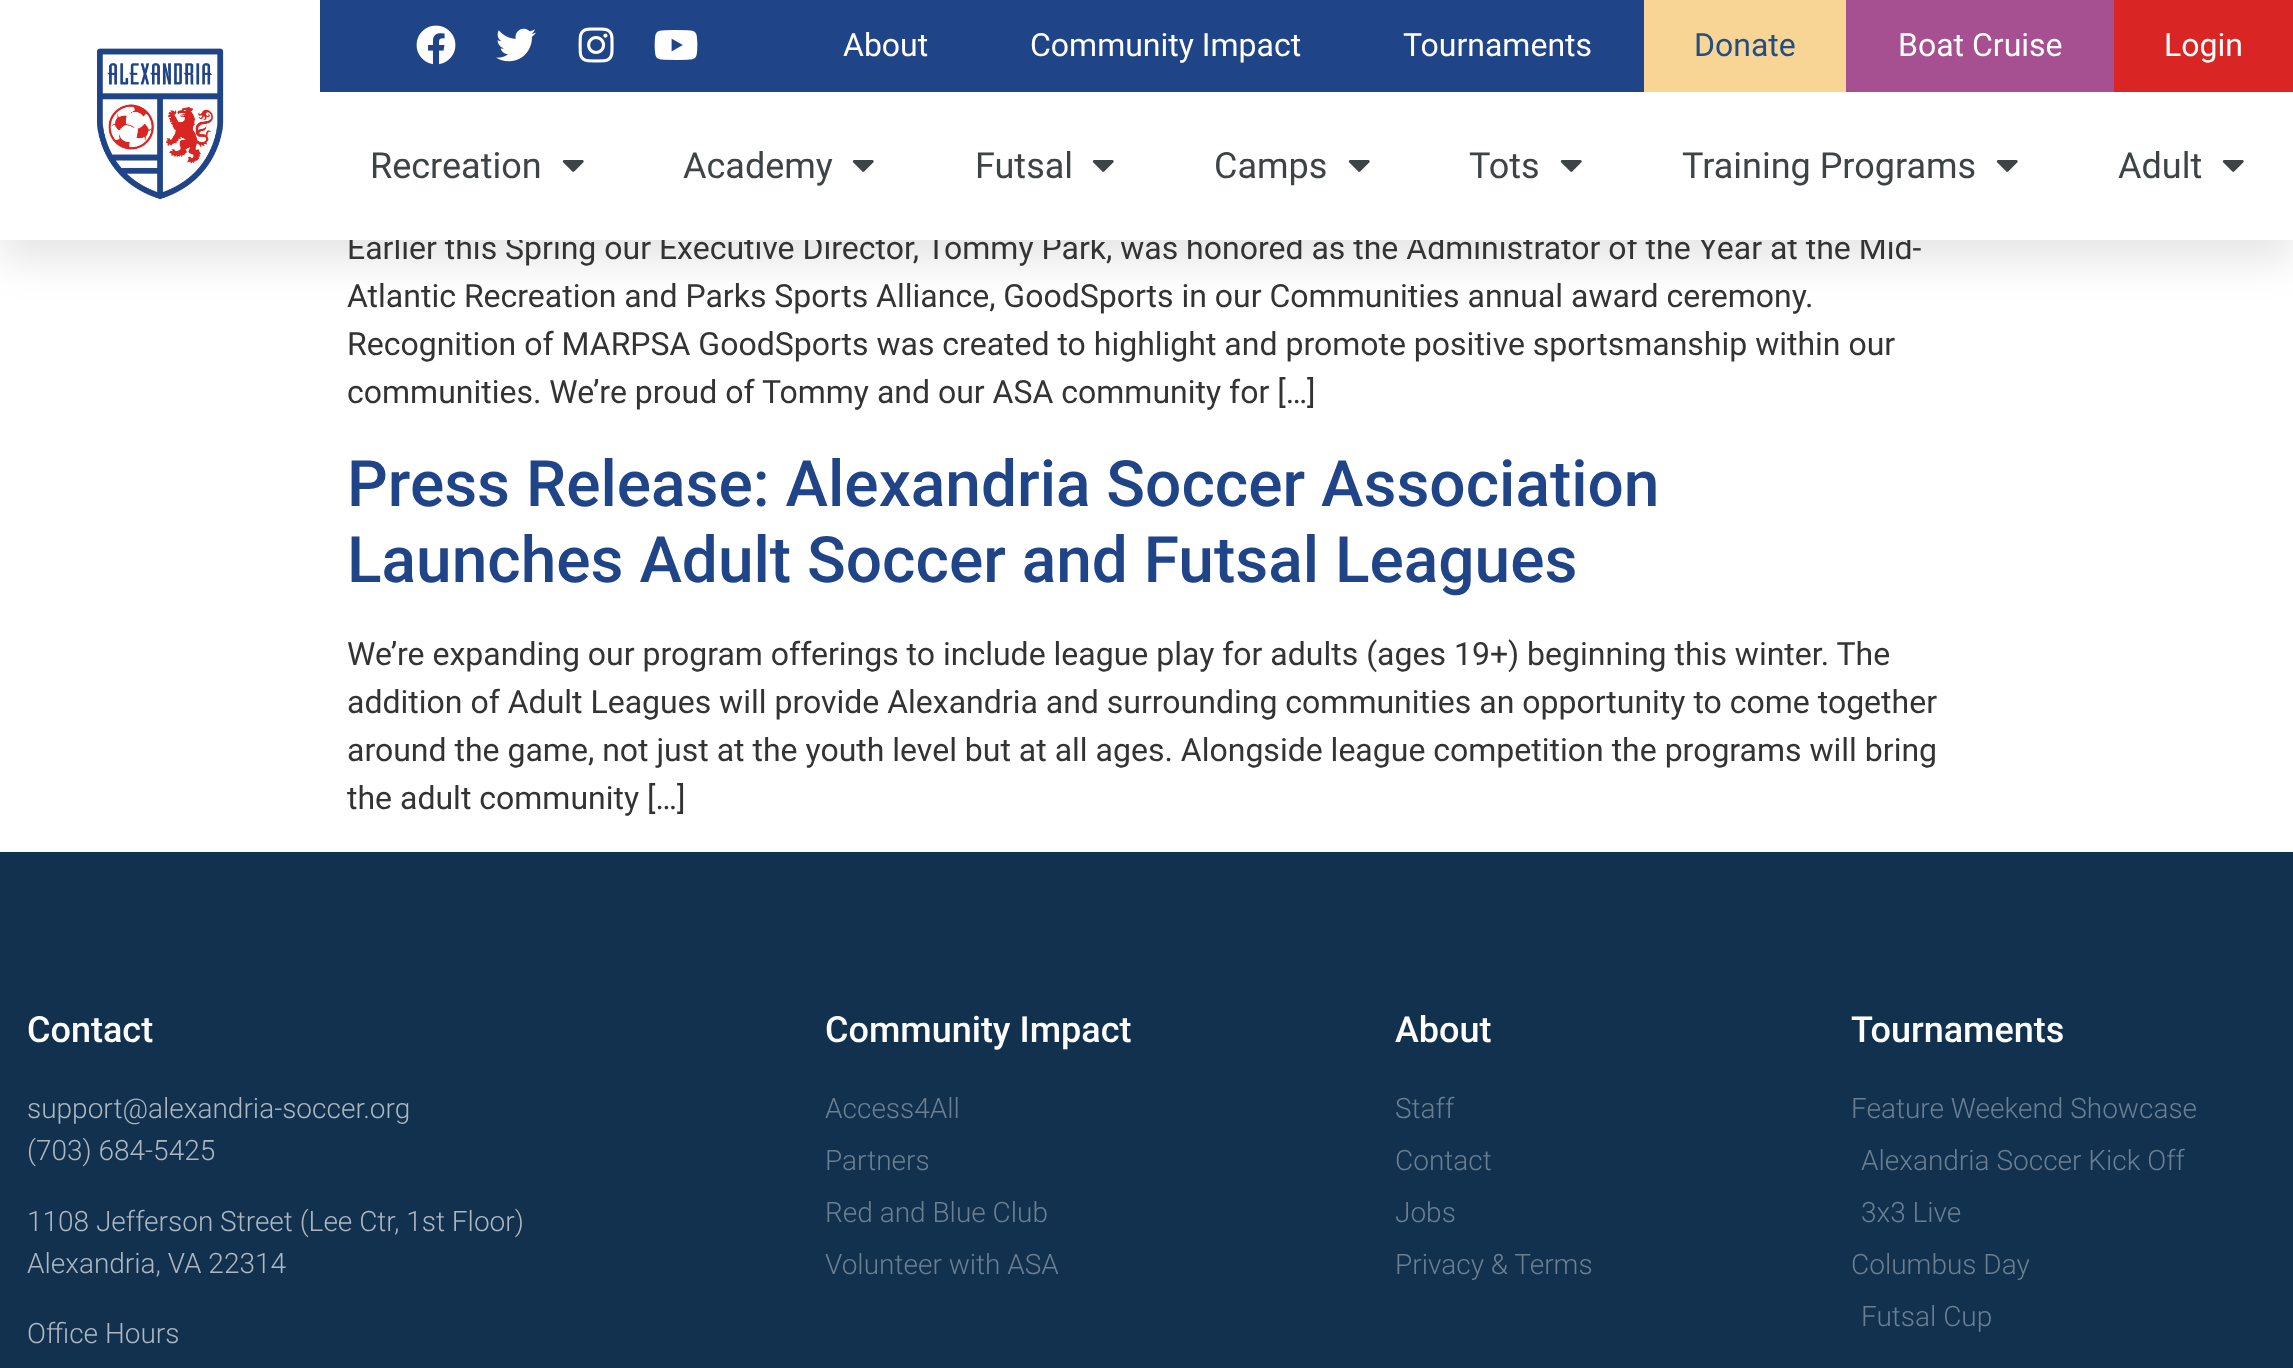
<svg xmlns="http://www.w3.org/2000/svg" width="2293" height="1368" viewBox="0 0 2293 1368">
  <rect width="100%" height="100%" fill="rgb(255,255,255)"/>
  <rect x="0" y="20" width="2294" height="240" fill="rgba(0,0,0,0.1)" filter="blur(20px)"/>
  <text x="347" y="259" font-family="Roboto" font-size="32" fill="rgb(51,51,51)">Earlier this Spring our Executive Director, Tommy Park, was honored as the Administrator of the Year at the Mid-</text>
  <rect x="0" y="0" width="2293" height="240" fill="rgb(255,255,255)"/>
  <image x="97" y="48" width="127" height="152" href="pic1.png"/>
  <rect x="320" y="0" width="1324" height="92" fill="rgb(32,68,136)"/>
  <image x="416" y="25" width="40" height="40" href="pic2.png"/>
  <image x="496" y="28" width="40" height="34" href="pic3.png"/>
  <image x="578" y="27" width="36" height="36" href="pic4.png"/>
  <image x="654" y="30" width="44" height="30" href="pic5.png"/>
  <g font-family="Roboto" font-size="32" fill="rgb(255,255,255)">
    <text x="843" y="56">About</text>
    <text x="1030" y="56">Community Impact</text>
    <text x="1403" y="56">Tournaments</text>
  </g>
  <rect x="1644" y="0" width="202" height="92" fill="rgb(248,213,149)"/>
  <text x="1694" y="56" font-family="Roboto" font-size="32" fill="rgb(33,79,131)">Donate</text>
  <rect x="1846" y="0" width="268" height="92" fill="rgb(166,80,145)"/>
  <text x="1898" y="56" font-family="Roboto" font-size="32" fill="rgb(255,255,255)">Boat Cruise</text>
  <rect x="2114" y="0" width="179" height="92" fill="rgb(217,37,36)"/>
  <text x="2164" y="56" font-family="Roboto" font-size="32" fill="rgb(255,255,255)">Login</text>
  <text x="370" y="178" font-family="Roboto" font-size="36" fill="rgb(62,67,69)">Recreation</text>
  <image x="562" y="160" width="22" height="12" href="pic6.png"/>
  <text x="683" y="178" font-family="Roboto" font-size="36" fill="rgb(62,67,69)">Academy</text>
  <image x="852" y="160" width="22" height="12" href="pic6.png"/>
  <text x="975" y="178" font-family="Roboto" font-size="36" fill="rgb(62,67,69)">Futsal</text>
  <image x="1092" y="160" width="22" height="12" href="pic6.png"/>
  <text x="1214" y="178" font-family="Roboto" font-size="36" fill="rgb(62,67,69)">Camps</text>
  <image x="1348" y="160" width="22" height="12" href="pic6.png"/>
  <text x="1469" y="178" font-family="Roboto" font-size="36" fill="rgb(62,67,69)">Tots</text>
  <image x="1560" y="160" width="22" height="12" href="pic6.png"/>
  <text x="1682" y="178" font-family="Roboto" font-size="36" fill="rgb(62,67,69)">Training Programs</text>
  <image x="1996" y="160" width="22" height="12" href="pic6.png"/>
  <text x="2118" y="178" font-family="Roboto" font-size="36" fill="rgb(62,67,69)">Adult</text>
  <image x="2222" y="160" width="22" height="12" href="pic6.png"/>
  <g font-family="Roboto" font-size="32" fill="rgb(51,51,51)">
    <text>
      <tspan x="347" y="307">Atlantic Recreation and Parks Sports Alliance, GoodSports in our Communities annual award ceremony.</tspan>
      <tspan x="347" y="355">Recognition of MARPSA GoodSports was created to highlight and promote positive sportsmanship within our</tspan>
      <tspan x="347" y="403">communities. We’re proud of Tommy and our ASA community for […]</tspan>
    </text>
  </g>
  <g font-family="Roboto" font-size="64" font-weight="500" fill="rgb(32,68,136)">
    <text>
      <tspan x="347" y="506">Press Release: Alexandria Soccer Association</tspan>
      <tspan x="347" y="582">Launches Adult Soccer and Futsal Leagues</tspan>
    </text>
  </g>
  <g font-family="Roboto" font-size="32" fill="rgb(51,51,51)">
    <text>
      <tspan x="347" y="665">We’re expanding our program offerings to include league play for adults (ages 19+) beginning this winter. The</tspan>
      <tspan x="347" y="713">addition of Adult Leagues will provide Alexandria and surrounding communities an opportunity to come together</tspan>
      <tspan x="347" y="761">around the game, not just at the youth level but at all ages. Alongside league competition the programs will bring</tspan>
      <tspan x="347" y="809">the adult community […]</tspan>
    </text>
  </g>
  <rect x="0" y="852" width="2293" height="516" fill="rgb(17,49,79)"/>
  <text x="27" y="1042" font-family="Roboto" font-size="36" font-weight="500" fill="rgb(255,255,255)">Contact</text>
  <g font-family="Roboto" font-size="28" font-weight="300" fill="rgb(172,183,193)">
    <text>
      <tspan x="27" y="1118">support@alexandria-soccer.org</tspan>
      <tspan x="27" y="1160">(703) 684-5425</tspan>
    </text>
    <text>
      <tspan x="27" y="1231">1108 Jefferson Street (Lee Ctr, 1st Floor)</tspan>
      <tspan x="27" y="1273">Alexandria, VA 22314</tspan>
    </text>
    <text x="27" y="1343">Office Hours</text>
  </g>
  <text x="825" y="1042" font-family="Roboto" font-size="36" font-weight="500" fill="rgb(255,255,255)">Community Impact</text>
  <g font-family="Roboto" font-size="28" font-weight="300" fill="rgb(107,127,146)">
    <text>
      <tspan x="825" y="1118">Access4All</tspan>
      <tspan x="825" y="1170">Partners</tspan>
      <tspan x="825" y="1222">Red and Blue Club</tspan>
      <tspan x="825" y="1274">Volunteer with ASA</tspan>
    </text>
  </g>
  <text x="1395" y="1042" font-family="Roboto" font-size="36" font-weight="500" fill="rgb(255,255,255)">About</text>
  <g font-family="Roboto" font-size="28" font-weight="300" fill="rgb(107,127,146)">
    <text>
      <tspan x="1395" y="1118">Staff</tspan>
      <tspan x="1395" y="1170">Contact</tspan>
      <tspan x="1395" y="1222">Jobs</tspan>
      <tspan x="1395" y="1274">Privacy &amp; Terms</tspan>
    </text>
  </g>
  <text x="1851" y="1042" font-family="Roboto" font-size="36" font-weight="500" fill="rgb(255,255,255)">Tournaments</text>
  <g font-family="Roboto" font-size="28" font-weight="300" fill="rgb(107,127,146)">
    <text x="1851" y="1118">Feature Weekend Showcase</text>
    <text>
      <tspan x="1861" y="1170">Alexandria Soccer Kick Off</tspan>
      <tspan x="1861" y="1222">3x3 Live</tspan>
    </text>
    <text x="1851" y="1274">Columbus Day</text>
    <text x="1861" y="1326">Futsal Cup</text>
  </g>
</svg>
